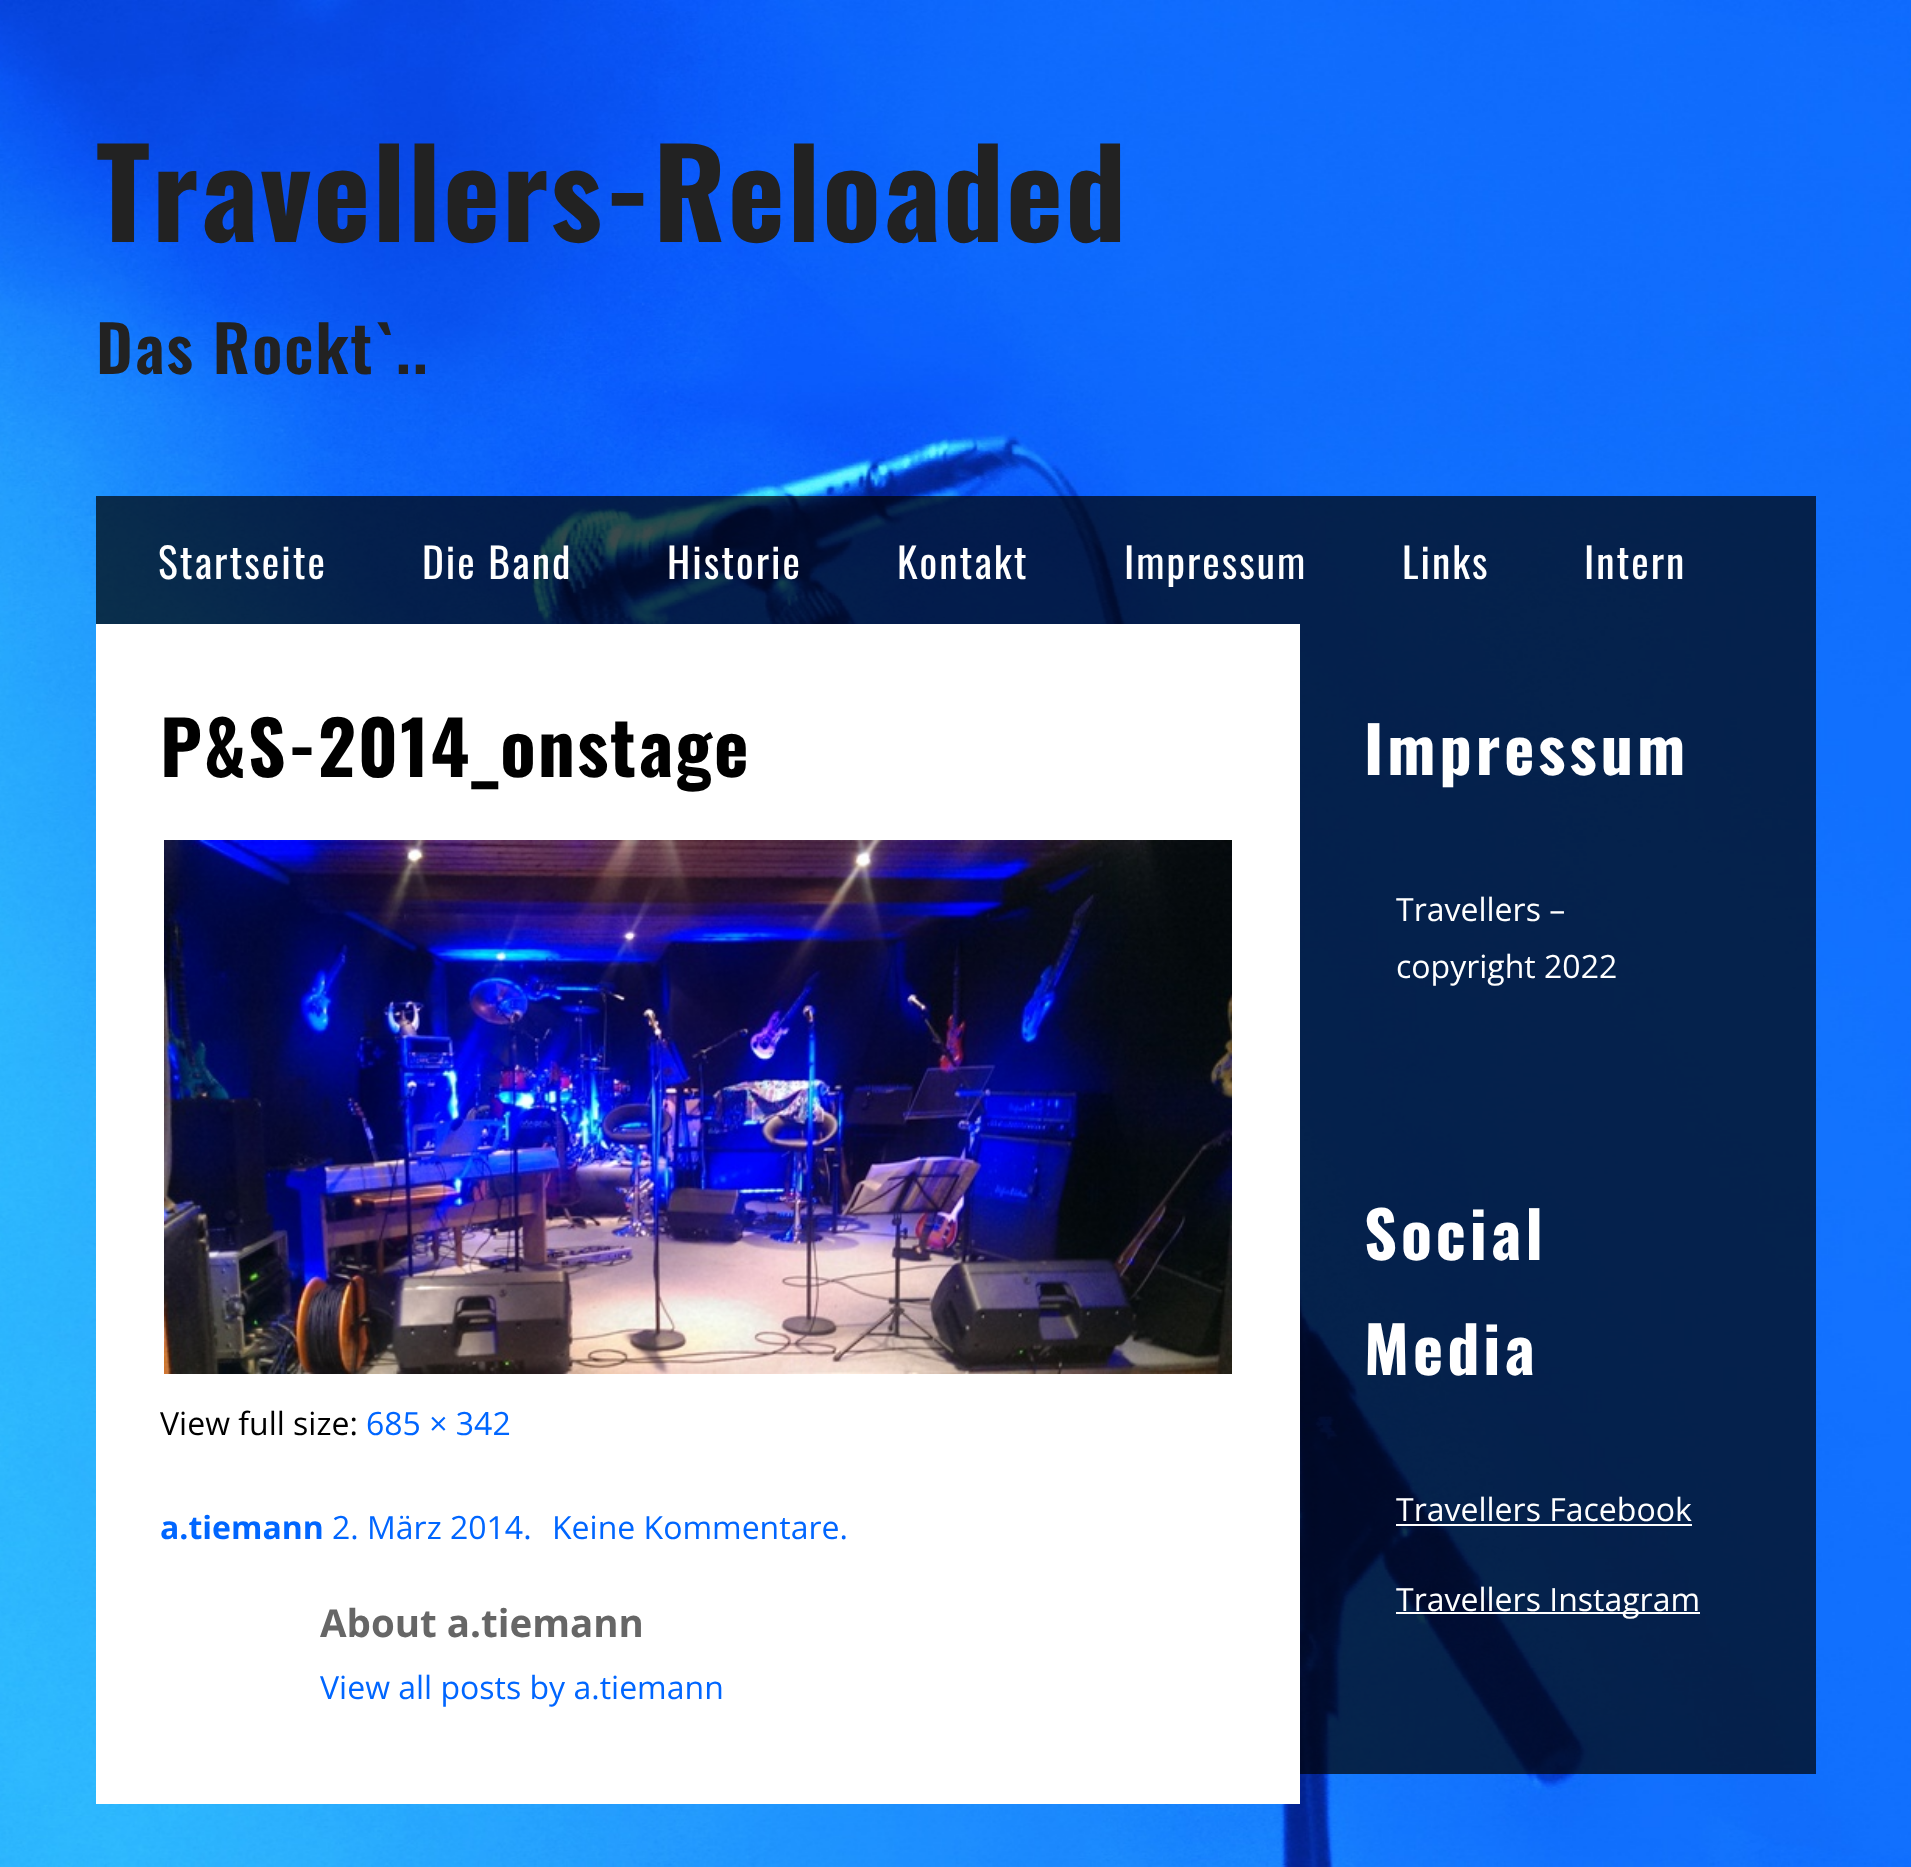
<svg xmlns="http://www.w3.org/2000/svg" width="1911" height="1867" viewBox="0 0 1911 1867">
  <rect width="100%" height="100%" fill="rgb(255,255,255)"/>
  <image x="0" y="0" width="1911" height="1867" href="pic1.png"/>
  <text x="96" y="242" font-family="Oswald" font-size="121.5" font-weight="bold" letter-spacing="2" fill="rgb(34,34,34)">Travellers-Reloaded</text>
  <text x="96" y="374" font-family="Oswald" font-size="64" font-weight="600" letter-spacing="2" fill="rgb(34,34,34)">Das Rockt`..</text>
  <rect x="96" y="496" width="1720" height="128" fill="rgba(0,0,0,0.7)"/>
  <g font-family="Oswald" font-size="41.5" letter-spacing="2" fill="rgb(255,255,255)">
    <text x="158" y="579">Startseite</text>
    <text x="422" y="579">Die Band</text>
    <text x="667" y="579">Historie</text>
    <text x="897" y="579">Kontakt</text>
    <text x="1124" y="579">Impressum</text>
    <text x="1402" y="579">Links</text>
    <text x="1584" y="579">Intern</text>
  </g>
  <rect x="96" y="624" width="1204" height="1180" fill="rgb(255,255,255)"/>
  <text x="160" y="777" font-family="Oswald" font-size="73.5" font-weight="bold" letter-spacing="2" fill="rgb(0,0,0)">P&amp;S-2014_onstage</text>
  <image x="164" y="840" width="1068" height="534" href="pic2.png"/>
  <text x="160" y="1435" font-family="Open Sans" font-size="32" fill="rgb(0,0,0)">View full size:</text>
  <text x="366" y="1435" font-family="Open Sans" font-size="32" fill="rgb(0,102,255)">685 × 342</text>
  <text x="160" y="1539" font-family="Open Sans" font-size="32" font-weight="bold" fill="rgb(0,102,255)">a.tiemann</text>
  <g font-family="Open Sans" font-size="32" fill="rgb(0,102,255)">
    <text x="332" y="1539">2. März 2014.</text>
    <text x="552" y="1539">Keine Kommentare.</text>
  </g>
  <text x="320" y="1637" font-family="Open Sans" font-size="38.5" font-weight="bold" fill="rgb(102,102,102)">About a.tiemann</text>
  <text x="320" y="1699" font-family="Open Sans" font-size="32" fill="rgb(0,102,255)">View all posts by a.tiemann</text>
  <rect x="1300" y="624" width="516" height="1150" fill="rgba(0,0,0,0.7)"/>
  <text x="1364" y="775" font-family="Oswald" font-size="64" font-weight="bold" letter-spacing="4" fill="rgb(255,255,255)">Impressum</text>
  <g font-family="Open Sans" font-size="32" fill="rgb(255,255,255)">
    <text>
      <tspan x="1396" y="921">Travellers –</tspan>
      <tspan x="1396" y="978">copyright 2022</tspan>
    </text>
  </g>
  <g font-family="Oswald" font-size="64" font-weight="bold" letter-spacing="4" fill="rgb(255,255,255)">
    <text>
      <tspan x="1364" y="1260">Social</tspan>
      <tspan x="1364" y="1375">Media</tspan>
    </text>
  </g>
  <text x="1396" y="1521" font-family="Open Sans" font-size="32" fill="rgb(255,255,255)">Travellers Facebook</text>
  <rect x="1396" y="1524" width="296" height="2" fill="rgb(255,255,255)"/>
  <rect x="1396" y="1612" width="304" height="2" fill="rgb(255,255,255)"/>
  <text x="1396" y="1611" font-family="Open Sans" font-size="32" fill="rgb(255,255,255)">Travellers Instagram</text>
</svg>
